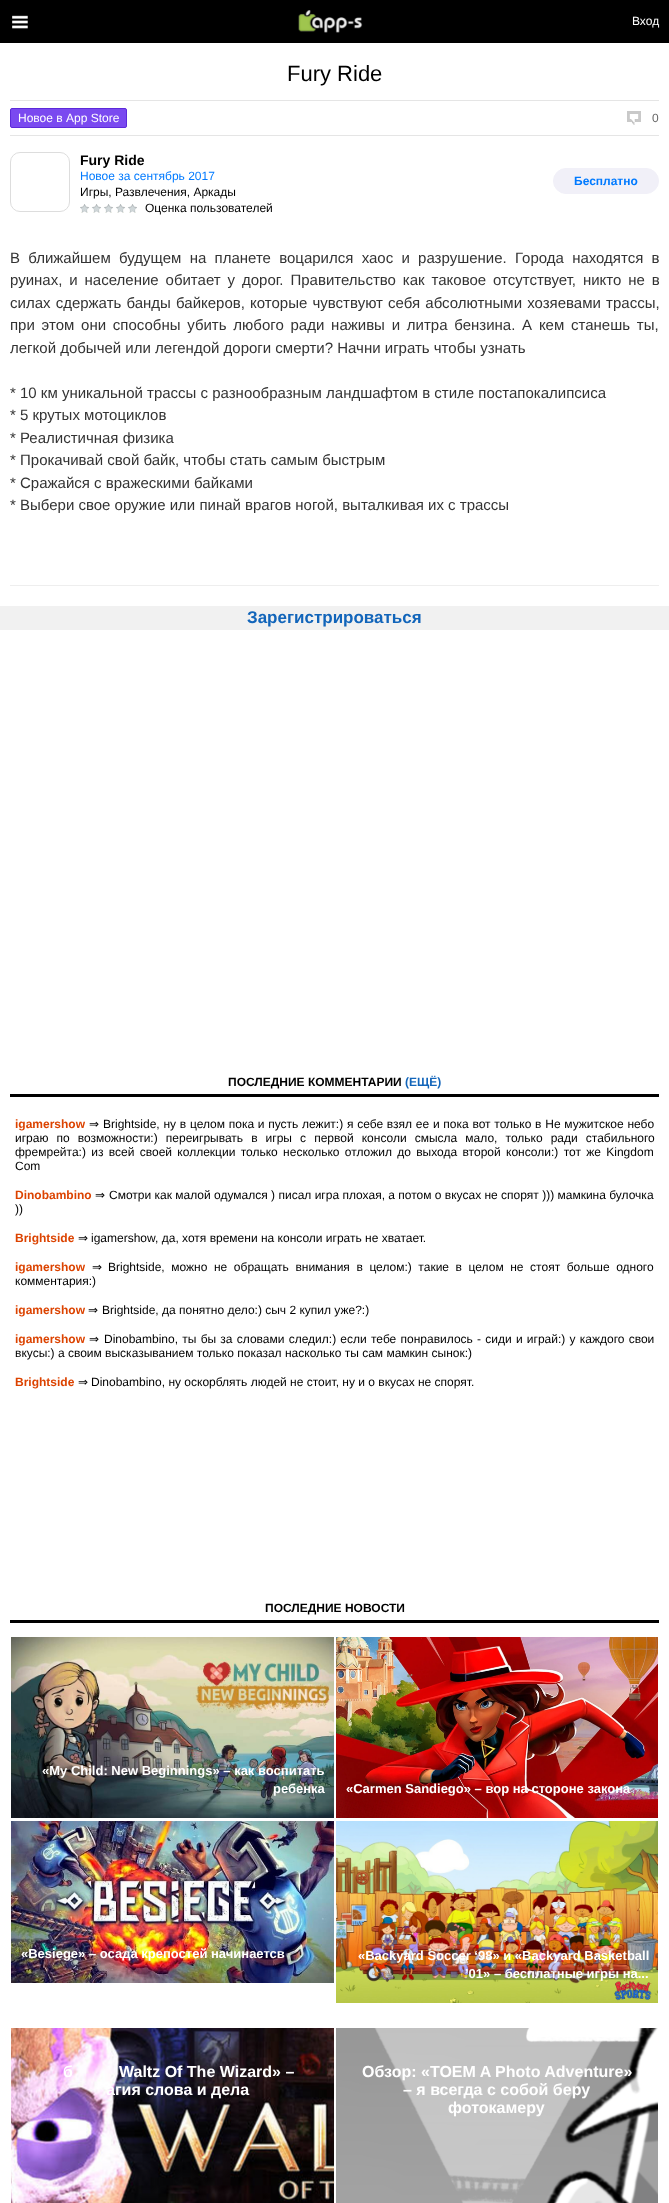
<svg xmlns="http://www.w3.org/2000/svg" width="669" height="2203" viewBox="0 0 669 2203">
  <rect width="100%" height="100%" fill="rgb(255,255,255)"/>
  <rect x="0" y="0" width="669" height="43" fill="rgb(0,0,0)"/>
  <image x="12" y="15" width="16" height="14" href="pic1.png"/>
  <image x="298" y="10" width="65" height="23" href="pic2.png"/>
  <text x="632" y="25" font-family="Liberation Sans" font-size="12" fill="rgb(255,255,255)">Вход</text>
  <text x="287" y="81" font-family="Liberation Sans" font-size="22" fill="rgb(0,0,0)">Fury Ride</text>
  <rect x="10" y="100" width="649" height="1" fill="rgb(229,229,229)"/>
  <rect x="10" y="135" width="649" height="1" fill="rgb(229,229,229)"/>
  <rect x="10.5" y="108.5" width="116" height="19" rx="1.5" fill="rgb(122,73,240)" stroke="rgb(93,42,218)"/>
  <text x="18" y="122" font-family="Liberation Sans" font-size="12" fill="rgb(255,255,255)">Новое в App Store</text>
  <image x="627" y="111" width="14" height="14" href="pic3.png"/>
  <text x="652" y="122" font-family="Liberation Sans" font-size="12" fill="rgb(102,102,102)">0</text>
  <rect x="10" y="585" width="649" height="1" fill="rgb(238,238,238)"/>
  <text x="80" y="165" font-family="Liberation Sans" font-size="14" font-weight="bold" fill="rgb(0,0,0)">Fury Ride</text>
  <text x="80" y="180" font-family="Liberation Sans" font-size="12" fill="rgb(0,122,255)">Новое за сентябрь 2017</text>
  <rect x="553.5" y="168.5" width="105" height="25" rx="12.5" fill="rgb(241,240,248)" stroke="rgb(241,240,248)"/>
  <text x="574" y="185" font-family="Liberation Sans" font-size="12" font-weight="bold" fill="rgb(0,122,255)">Бесплатно</text>
  <text x="80" y="196" font-family="Liberation Sans" font-size="12" fill="rgb(0,0,0)">Игры, Развлечения, Аркады</text>
  <image x="80" y="204" width="57" height="9" href="pic4.png"/>
  <text x="145" y="212" font-family="Liberation Sans" font-size="12" fill="rgb(0,0,0)">Оценка пользователей</text>
  <rect x="10.5" y="152.5" width="59" height="59" rx="9.5" fill="none" stroke="rgb(221,221,221)"/>
  <g font-family="Liberation Sans" font-size="15" fill="rgb(51,51,51)">
    <text>
      <tspan x="10" y="263" word-spacing="4.1">В ближайшем будущем на планете воцарился хаос и разрушение. Города находятся в</tspan>
      <tspan x="10" y="285" word-spacing="2.75">руинах, и население обитает у дорог. Правительство как таковое отсутствует, никто не в</tspan>
      <tspan x="10" y="308" word-spacing="1">силах сдержать банды байкеров, которые чувствуют себя абсолютными хозяевами трассы,</tspan>
      <tspan x="10" y="330" word-spacing="2.6">при этом они способны убить любого ради наживы и литра бензина. А кем станешь ты,</tspan>
      <tspan x="10" y="353">легкой добычей или легендой дороги смерти? Начни играть чтобы узнать</tspan>
    </text>
    <text>
      <tspan x="10" y="398">* 10 км уникальной трассы с разнообразным ландшафтом в стиле постапокалипсиса</tspan>
      <tspan x="10" y="420">* 5 крутых мотоциклов</tspan>
      <tspan x="10" y="443">* Реалистичная физика</tspan>
      <tspan x="10" y="465">* Прокачивай свой байк, чтобы стать самым быстрым</tspan>
      <tspan x="10" y="488">* Сражайся с вражескими байками</tspan>
      <tspan x="10" y="510">* Выбери свое оружие или пинай врагов ногой, выталкивая их с трассы</tspan>
    </text>
  </g>
  <rect x="0" y="606" width="669" height="24" fill="rgb(241,241,241)"/>
  <text x="247" y="623" font-family="Liberation Sans" font-size="17" font-weight="bold" fill="rgb(18,101,186)">Зарегистрироваться</text>
  <rect x="10" y="1094" width="649" height="3" fill="rgb(0,0,0)"/>
  <text x="228" y="1086" font-family="Liberation Sans" font-size="12" font-weight="bold" fill="rgb(0,0,0)">ПОСЛЕДНИЕ КОММЕНТАРИИ</text>
  <text x="405" y="1086" font-family="Liberation Sans" font-size="12" font-weight="bold" fill="rgb(18,101,186)">(ЕЩЁ)</text>
  <text x="15" y="1128" font-family="Liberation Sans" font-size="12" font-weight="bold" fill="rgb(220,67,0)">igamershow</text>
  <text x="89" y="1128" font-family="DejaVu Sans" font-size="12" fill="rgb(0,0,0)">⇒</text>
  <g font-family="Liberation Sans" font-size="12" fill="rgb(0,0,0)">
    <text x="103" y="1128" word-spacing="0.4">Brightside, ну в целом пока и пусть лежит:) я себе взял ее и пока вот только в Не мужитское небо</text>
    <text>
      <tspan x="15" y="1142" word-spacing="4.75">играю по возможности:) переигрывать в игры с первой консоли смысла мало, только ради стабильного</tspan>
      <tspan x="15" y="1156" word-spacing="2">фремрейта:) из всей своей коллекции только несколько отложил до выхода второй консоли:) тот же Kingdom</tspan>
      <tspan x="15" y="1170">Com</tspan>
    </text>
  </g>
  <text x="15" y="1199" font-family="Liberation Sans" font-size="12" font-weight="bold" fill="rgb(220,67,0)">Dinobambino</text>
  <text x="95" y="1199" font-family="DejaVu Sans" font-size="12" fill="rgb(0,0,0)">⇒</text>
  <g font-family="Liberation Sans" font-size="12" fill="rgb(0,0,0)">
    <text x="109" y="1199">Смотри как малой одумался ) писал игра плохая, а потом о вкусах не спорят ))) мамкина булочка</text>
    <text x="15" y="1213">))</text>
  </g>
  <text x="15" y="1242" font-family="Liberation Sans" font-size="12" font-weight="bold" fill="rgb(220,67,0)">Brightside</text>
  <text x="78" y="1242" font-family="DejaVu Sans" font-size="12" fill="rgb(0,0,0)">⇒</text>
  <text x="91" y="1242" font-family="Liberation Sans" font-size="12" fill="rgb(0,0,0)">igamershow, да, хотя времени на консоли играть не хватает.</text>
  <text x="15" y="1271" font-family="Liberation Sans" font-size="12" font-weight="bold" fill="rgb(220,67,0)">igamershow</text>
  <text x="92" y="1271" font-family="DejaVu Sans" font-size="12" fill="rgb(0,0,0)">⇒</text>
  <g font-family="Liberation Sans" font-size="12" fill="rgb(0,0,0)">
    <text x="108" y="1271" word-spacing="3.25">Brightside, можно не обращать внимания в целом:) такие в целом не стоят больше одного</text>
    <text x="15" y="1285">комментария:)</text>
  </g>
  <text x="15" y="1314" font-family="Liberation Sans" font-size="12" font-weight="bold" fill="rgb(220,67,0)">igamershow</text>
  <text x="88" y="1314" font-family="DejaVu Sans" font-size="12" fill="rgb(0,0,0)">⇒</text>
  <text x="102" y="1314" font-family="Liberation Sans" font-size="12" fill="rgb(0,0,0)">Brightside, да понятно дело:) сыч 2 купил уже?:)</text>
  <text x="15" y="1343" font-family="Liberation Sans" font-size="12" font-weight="bold" fill="rgb(220,67,0)">igamershow</text>
  <text x="89" y="1343" font-family="DejaVu Sans" font-size="12" fill="rgb(0,0,0)">⇒</text>
  <g font-family="Liberation Sans" font-size="12" fill="rgb(0,0,0)">
    <text x="104" y="1343" word-spacing="0.9">Dinobambino, ты бы за словами следил:) если тебе понравилось - сиди и играй:) у каждого свои</text>
    <text x="15" y="1357">вкусы:) а своим высказыванием только показал насколько ты сам мамкин сынок:)</text>
  </g>
  <text x="15" y="1386" font-family="Liberation Sans" font-size="12" font-weight="bold" fill="rgb(220,67,0)">Brightside</text>
  <text x="78" y="1386" font-family="DejaVu Sans" font-size="12" fill="rgb(0,0,0)">⇒</text>
  <text x="91" y="1386" font-family="Liberation Sans" font-size="12" fill="rgb(0,0,0)">Dinobambino, ну оскорблять людей не стоит, ну и о вкусах не спорят.</text>
  <rect x="10" y="1620" width="649" height="3" fill="rgb(0,0,0)"/>
  <text x="265" y="1612" font-family="Liberation Sans" font-size="12" font-weight="bold" fill="rgb(0,0,0)">ПОСЛЕДНИЕ НОВОСТИ</text>
  <image x="11" y="1637" width="323" height="181" href="pic5.png"/>
  <g font-family="Liberation Sans" font-size="13" font-weight="bold" fill="rgb(255,255,255)">
    <text x="42" y="1775">«My Child: New Beginnings» – как воспитать</text>
    <text x="273" y="1793">ребенка</text>
  </g>
  <image x="336" y="1637" width="322" height="181" href="pic6.png"/>
  <text x="346" y="1793" font-family="Liberation Sans" font-size="13" font-weight="bold" fill="rgb(255,255,255)">«Carmen Sandiego» – вор на стороне закона</text>
  <image x="11" y="1821" width="323" height="162" href="pic7.png"/>
  <text x="21" y="1958" font-family="Liberation Sans" font-size="13" font-weight="bold" fill="rgb(255,255,255)">«Besiege» – осада крепостей начинаетсв</text>
  <image x="336" y="1821" width="322" height="182" href="pic8.png"/>
  <g font-family="Liberation Sans" font-size="13" font-weight="bold" fill="rgb(255,255,255)">
    <text x="358" y="1960">«Backyard Soccer ‘98» и «Backyard Basketball</text>
    <text x="465" y="1978">’01» – бесплатные игры на...</text>
  </g>
  <image x="11" y="2028" width="323" height="175" href="pic9.png"/>
  <g font-family="Liberation Sans" font-size="16" font-weight="bold" fill="rgb(255,255,255)">
    <text x="63" y="2077">б</text>
    <text x="119" y="2077">Waltz Of The Wizard» –</text>
    <text x="106" y="2095">агия слова и дела</text>
  </g>
  <image x="336" y="2028" width="322" height="175" href="pic10.png"/>
  <g font-family="Liberation Sans" font-size="16" font-weight="bold" fill="rgb(255,255,255)">
    <text x="362" y="2077">Обзор: «TOEM A Photo Adventure»</text>
    <text x="403" y="2095">– я всегда с собой беру</text>
    <text x="448" y="2113">фотокамеру</text>
  </g>
</svg>
